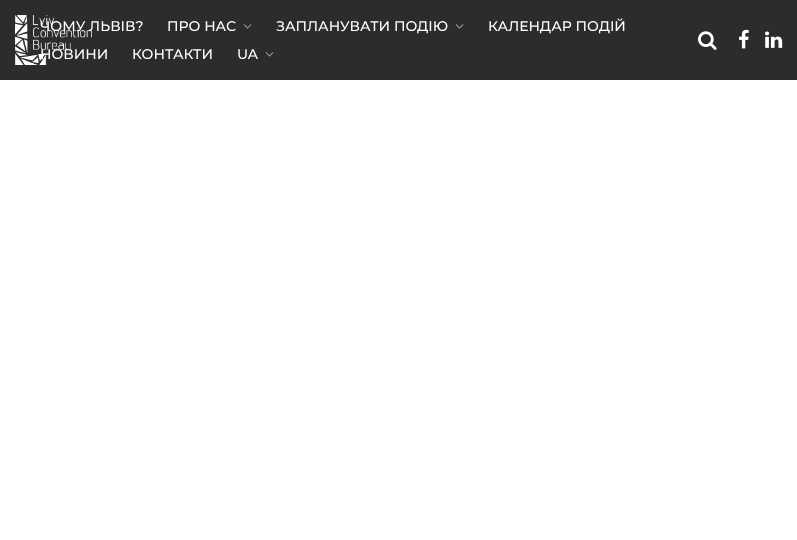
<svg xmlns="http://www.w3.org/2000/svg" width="797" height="540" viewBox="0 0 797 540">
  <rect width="100%" height="100%" fill="rgb(255,255,255)"/>
  <rect x="0" y="0" width="797" height="80" fill="rgb(44,44,44)"/>
  <g font-family="Montserrat" font-size="14" font-weight="500" fill="rgb(255,255,255)">
    <text x="40" y="31">ЧОМУ ЛЬВІВ?</text>
    <text x="40" y="59">НОВИНИ</text>
  </g>
  <image x="15" y="15" width="77" height="50" href="pic1.png"/>
  <text x="167" y="31" font-family="Montserrat" font-size="14" font-weight="500" fill="rgb(255,255,255)">ПРО НАС</text>
  <image x="243" y="24" width="9" height="5" href="pic2.png"/>
  <text x="276" y="31" font-family="Montserrat" font-size="14" font-weight="500" fill="rgb(255,255,255)">ЗАПЛАНУВАТИ ПОДІЮ</text>
  <image x="455" y="24" width="9" height="5" href="pic2.png"/>
  <g font-family="Montserrat" font-size="14" font-weight="500" fill="rgb(255,255,255)">
    <text x="488" y="31">КАЛЕНДАР ПОДІЙ</text>
    <text x="132" y="59">КОНТАКТИ</text>
    <text x="237" y="59">UA</text>
  </g>
  <image x="265" y="52" width="9" height="5" href="pic2.png"/>
  <image x="698" y="31" width="19" height="19" href="pic3.png"/>
  <image x="739" y="29" width="10" height="20" href="pic4.png"/>
  <image x="765" y="31" width="18" height="17" href="pic5.png"/>
</svg>
